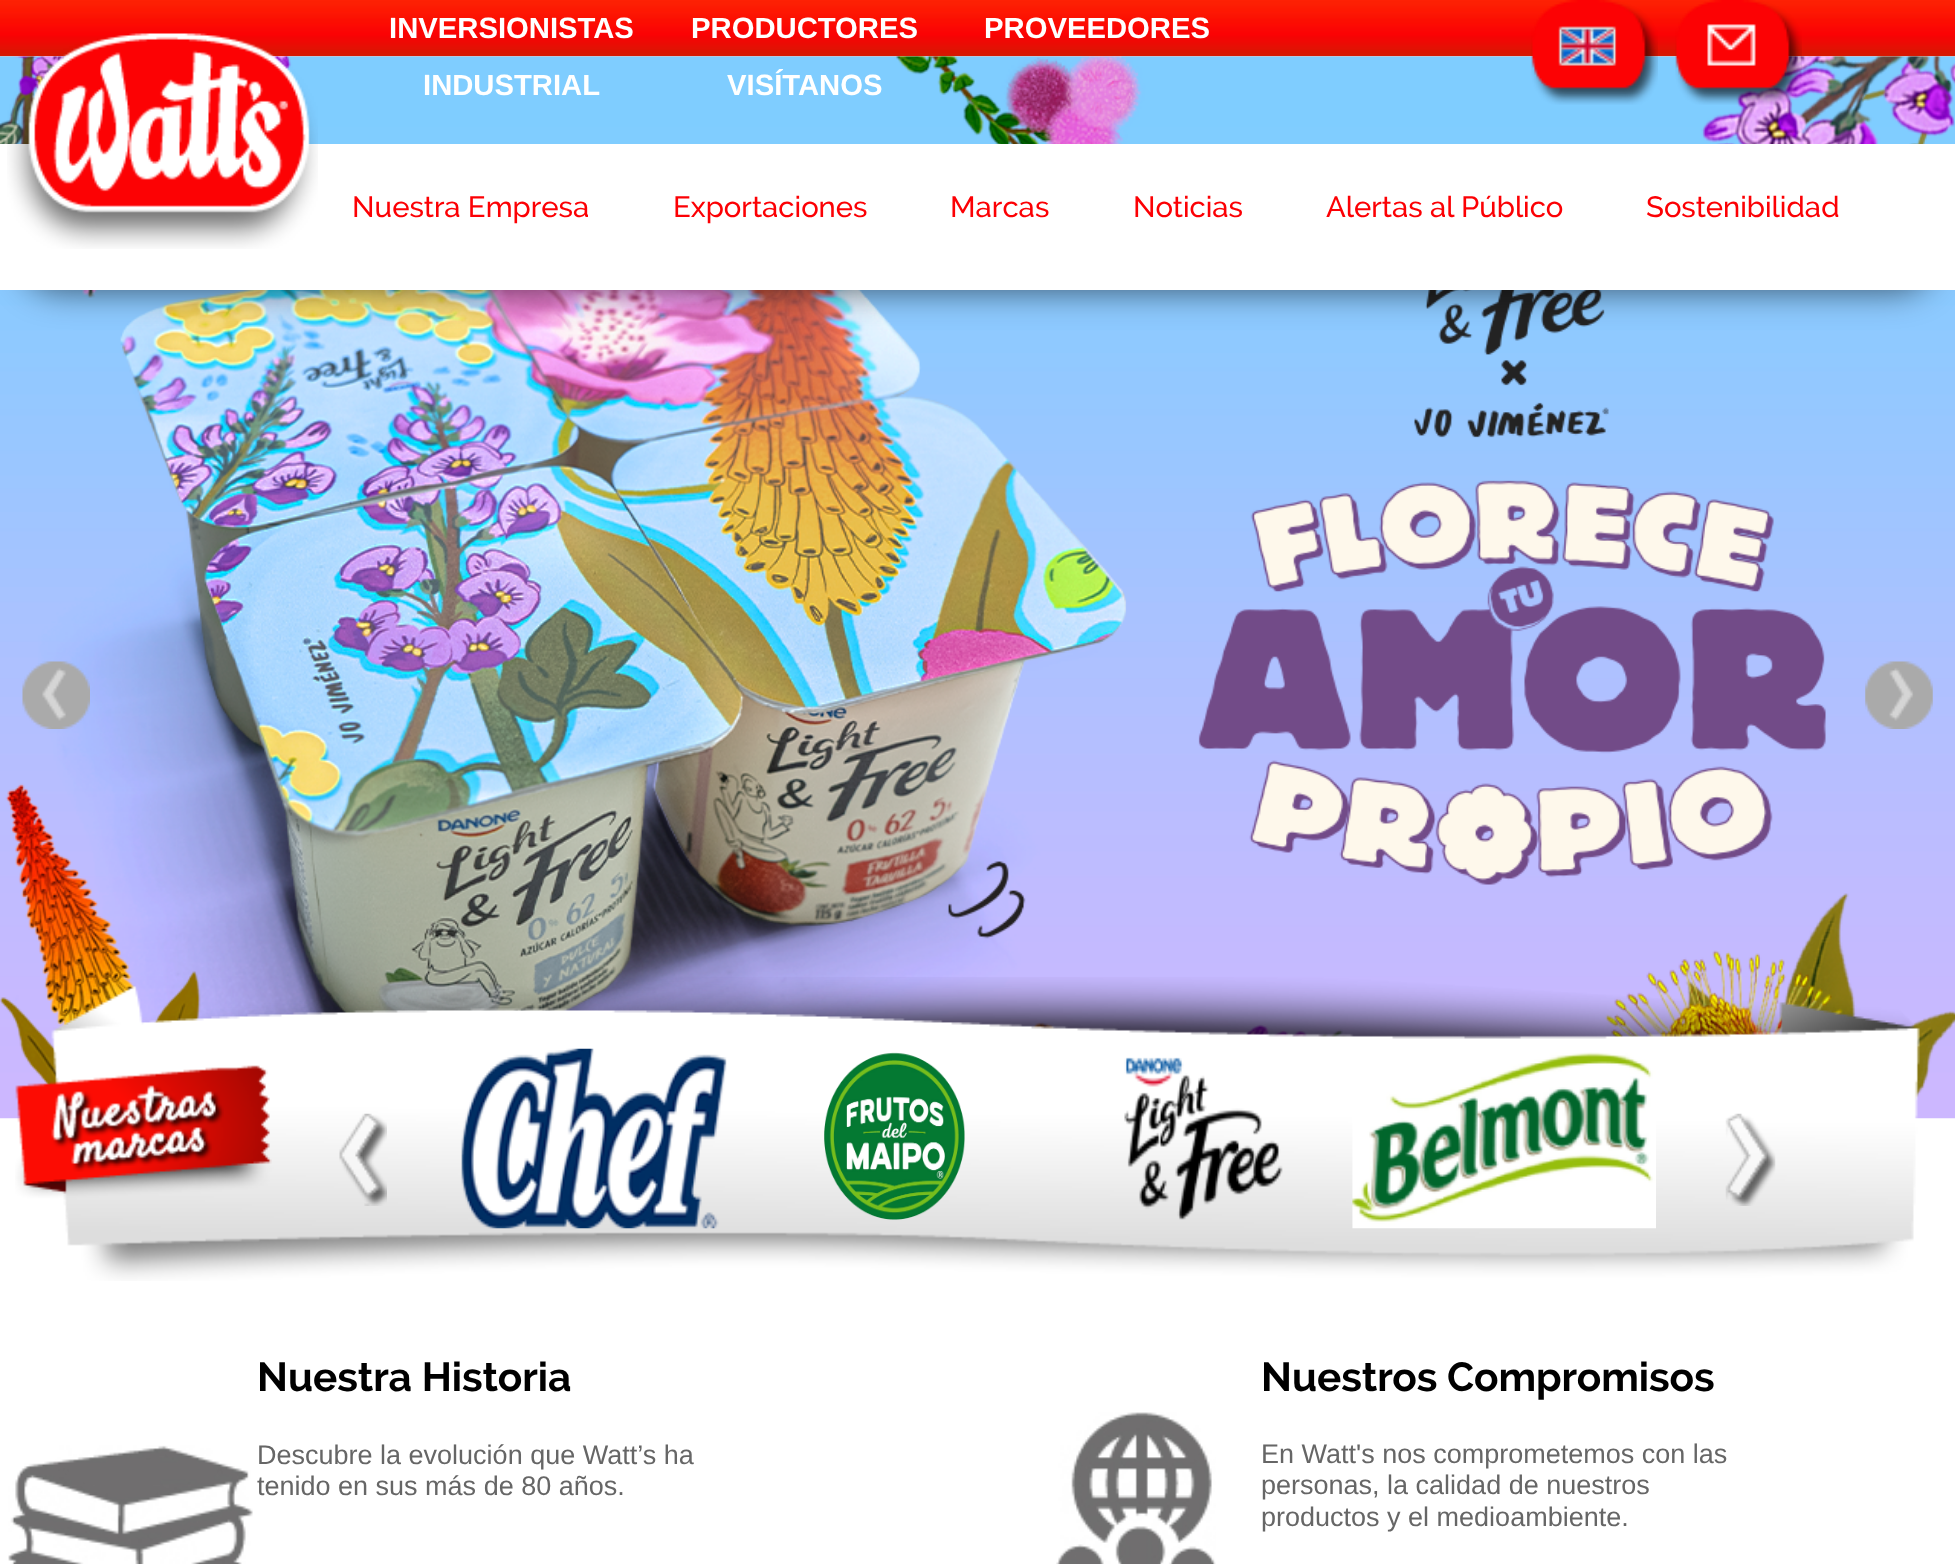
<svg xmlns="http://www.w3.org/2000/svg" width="1955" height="1564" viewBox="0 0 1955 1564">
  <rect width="100%" height="100%" fill="rgb(255,255,255)"/>
  <image x="0" y="0" width="1955" height="57" href="pic1.png"/>
  <image x="0" y="56" width="1955" height="1063" href="pic5.png"/>
  <rect x="23" y="218" width="1910" height="72" rx="36" fill="rgba(0,0,0,0.6)" filter="blur(17px)"/>
  <rect x="0" y="144" width="1955" height="146" fill="rgb(255,255,255)"/>
  <image x="7" y="33" width="311" height="216" href="pic2.png"/>
  <g font-family="Liberation Sans" font-size="29.25" font-weight="bold" fill="rgb(255,255,255)">
    <text x="389" y="38">INVERSIONISTAS</text>
    <text x="691" y="38">PRODUCTORES</text>
    <text x="984" y="38">PROVEEDORES</text>
    <text x="423" y="95">INDUSTRIAL</text>
    <text x="727" y="95">VISÍTANOS</text>
  </g>
  <image x="1531" y="0" width="127" height="105" href="pic3.png"/>
  <image x="1675" y="0" width="127" height="105" href="pic4.png"/>
  <g font-family="Raleway" font-size="29.25" font-weight="500" fill="rgb(252,0,4)">
    <text x="352" y="217">Nuestra Empresa</text>
    <text x="673" y="217">Exportaciones</text>
    <text x="950" y="217">Marcas</text>
    <text x="1133" y="217">Noticias</text>
    <text x="1326" y="217">Alertas al Público</text>
    <text x="1646" y="217">Sostenibilidad</text>
  </g>
  <image x="22" y="661" width="68" height="68" href="pic6.png"/>
  <image x="1865" y="661" width="68" height="68" href="pic7.png"/>
  <image x="15" y="977" width="1905" height="304" href="pic8.png"/>
  <image x="339" y="1113" width="48" height="93" href="pic9.png"/>
  <image x="461" y="1048" width="266" height="181" href="pic10.png"/>
  <image x="824" y="1052" width="141" height="168" href="pic11.png"/>
  <image x="1124" y="1057" width="159" height="163" href="pic12.png"/>
  <image x="1352" y="1052" width="304" height="177" href="pic13.png"/>
  <image x="1725" y="1113" width="51" height="93" href="pic14.png"/>
  <image x="8" y="1445" width="245" height="119" href="pic15.png"/>
  <text x="257" y="1391" font-family="Raleway" font-size="40.5" font-weight="bold" fill="rgb(0,0,0)">Nuestra Historia</text>
  <g font-family="Liberation Sans" font-size="27" fill="rgb(102,102,102)">
    <text>
      <tspan x="257" y="1464">Descubre la evolución que Watt’s ha</tspan>
      <tspan x="257" y="1495">tenido en sus más de 80 años.</tspan>
    </text>
  </g>
  <image x="1056" y="1412" width="160" height="152" href="pic16.png"/>
  <text x="1261" y="1391" font-family="Raleway" font-size="40.5" font-weight="bold" fill="rgb(0,0,0)">Nuestros Compromisos</text>
  <g font-family="Liberation Sans" font-size="27" fill="rgb(102,102,102)">
    <text>
      <tspan x="1261" y="1463">En Watt's nos comprometemos con las</tspan>
      <tspan x="1261" y="1494">personas, la calidad de nuestros</tspan>
      <tspan x="1261" y="1526">productos y el medioambiente.</tspan>
    </text>
  </g>
</svg>
